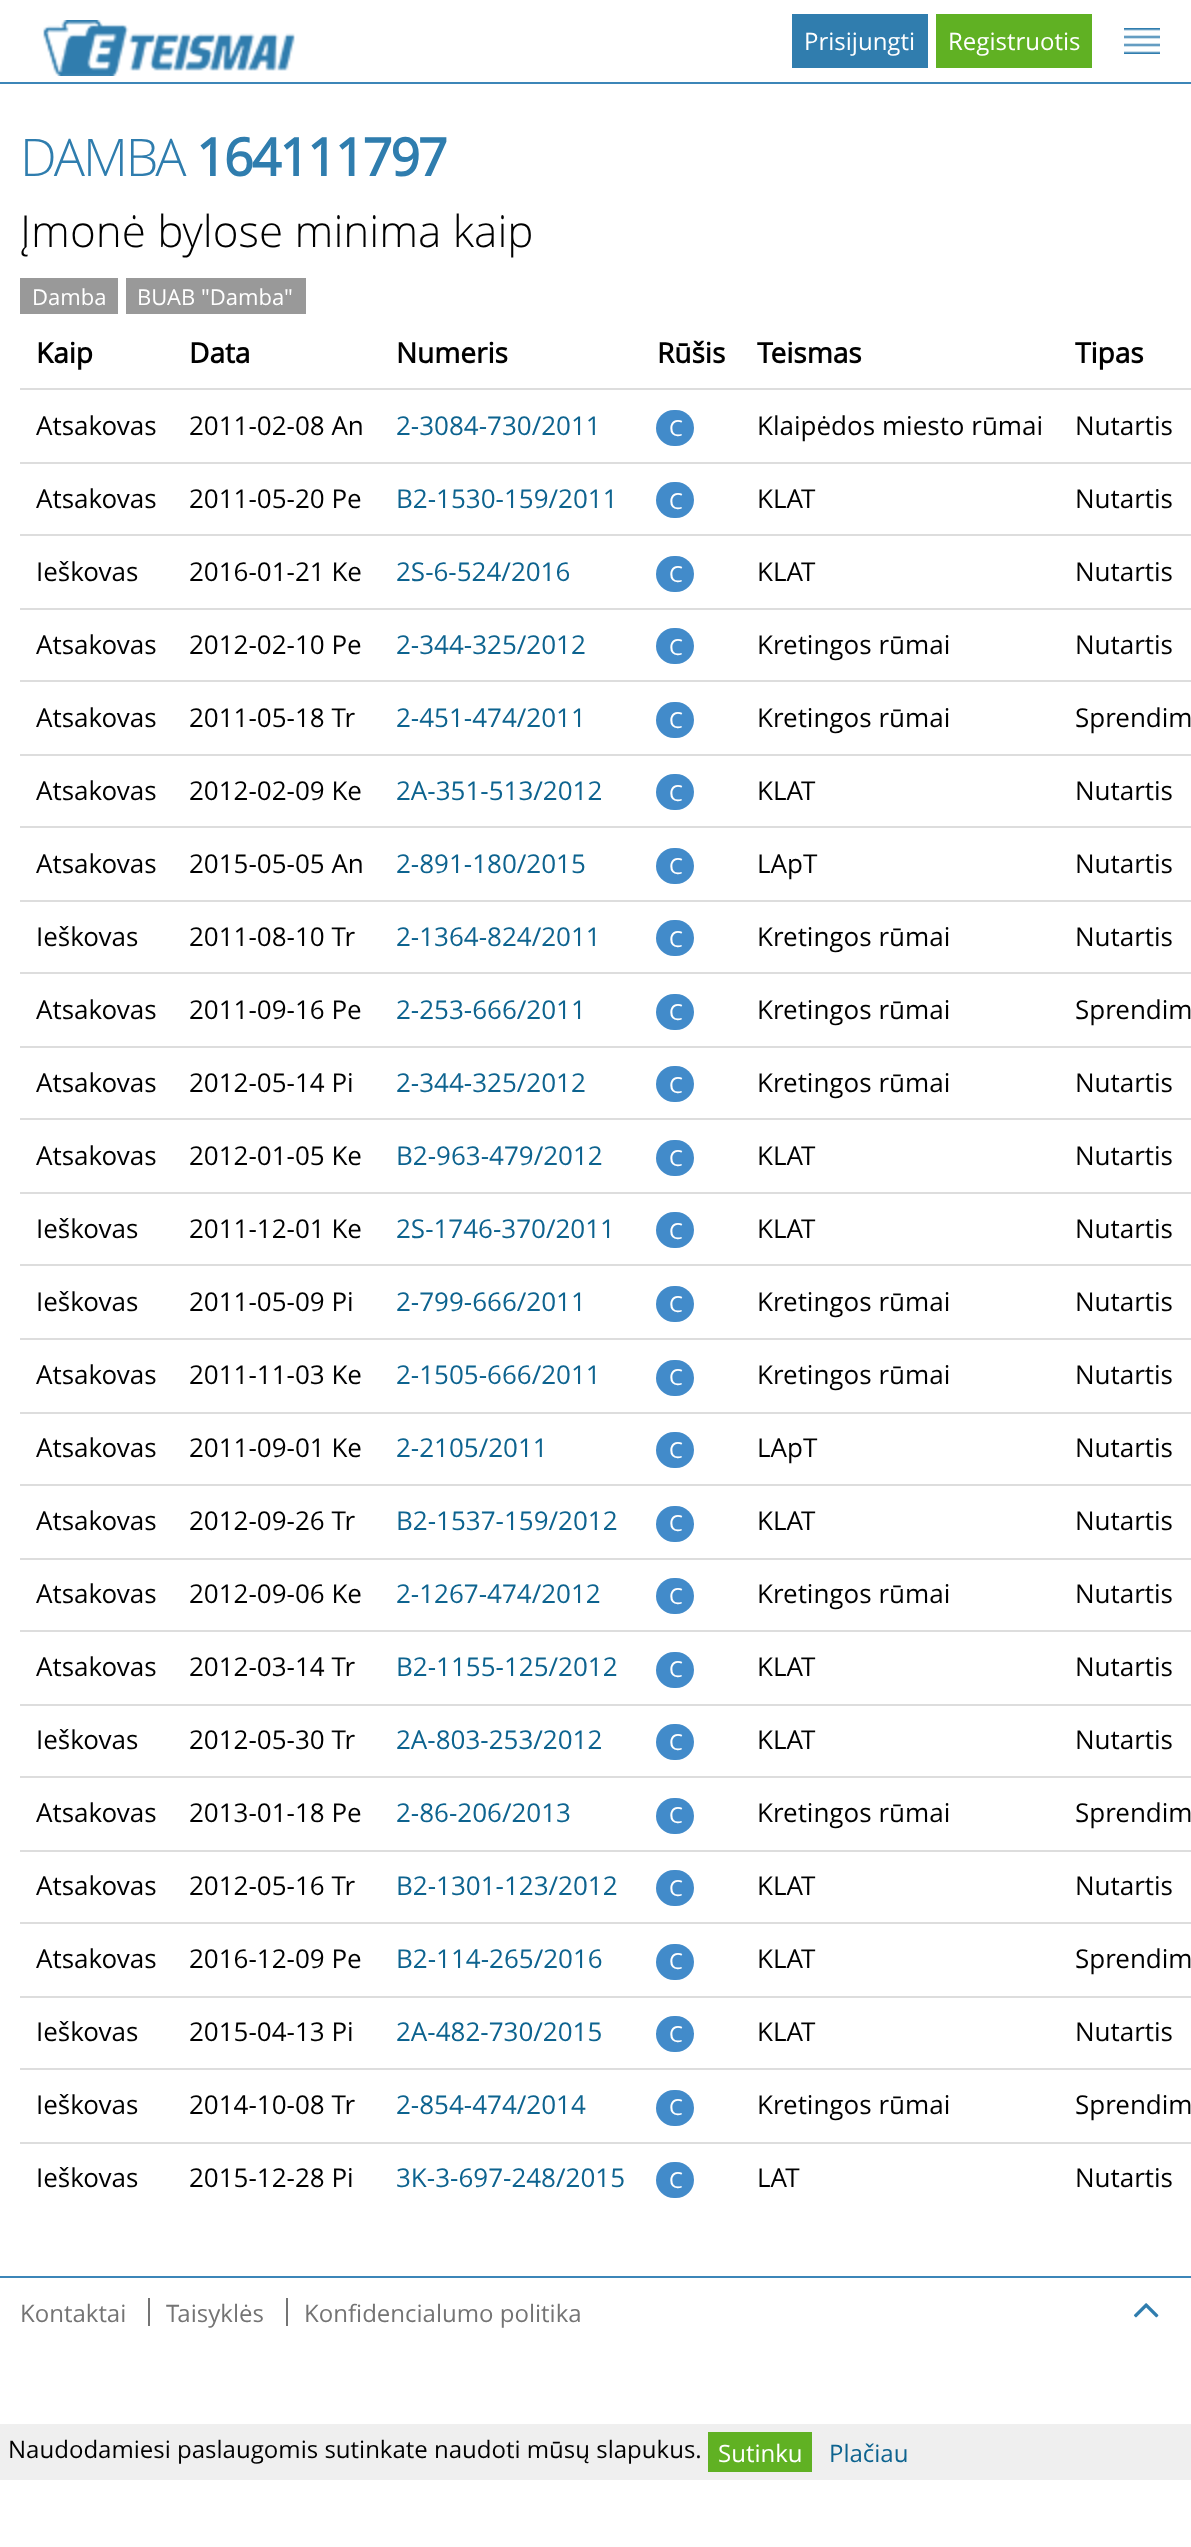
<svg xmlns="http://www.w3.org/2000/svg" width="1191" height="2547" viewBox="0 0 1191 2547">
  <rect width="100%" height="100%" fill="rgb(255,255,255)"/>
  <rect x="0" y="82" width="1191" height="2" fill="rgb(60,134,184)"/>
  <image x="43" y="20" width="252" height="56" href="pic1.png"/>
  <rect x="792" y="14" width="136" height="54" fill="rgb(48,125,174)"/>
  <text x="804" y="50" font-family="Open Sans" font-size="24" fill="rgb(255,255,255)">Prisijungti</text>
  <rect x="936" y="14" width="156" height="54" fill="rgb(96,177,35)"/>
  <text x="948" y="50" font-family="Open Sans" font-size="24" fill="rgb(255,255,255)">Registruotis</text>
  <image x="1124" y="28" width="36" height="26" href="pic2.png"/>
  <text x="20" y="176" font-family="Open Sans" font-size="52" font-weight="300" letter-spacing="-2" fill="rgb(47,125,174)">DAMBA</text>
  <text x="196" y="176" font-family="Open Sans" font-size="52" font-weight="bold" letter-spacing="-2" fill="rgb(47,125,174)">164111797</text>
  <text x="20" y="247" font-family="Open Sans" font-size="44" font-weight="300" fill="rgb(0,0,0)">Įmonė bylose minima kaip</text>
  <rect x="20" y="278" width="98" height="36" fill="rgb(153,153,153)"/>
  <text x="32" y="305" font-family="Open Sans" font-size="22" fill="rgb(255,255,255)">Damba</text>
  <rect x="126" y="278" width="180" height="36" fill="rgb(153,153,153)"/>
  <text x="137" y="305" font-family="Open Sans" font-size="22" fill="rgb(255,255,255)">BUAB "Damba"</text>
  <g font-family="Open Sans" font-size="28" font-weight="bold" fill="rgb(0,0,0)">
    <text x="36" y="363">Kaip</text>
    <text x="189" y="363">Data</text>
    <text x="396" y="363">Numeris</text>
    <text x="657" y="363">Rūšis</text>
    <text x="757" y="363">Teismas</text>
    <text x="1075" y="363">Tipas</text>
  </g>
  <g font-family="Open Sans" font-size="26" fill="rgb(0,0,0)">
    <text x="36" y="435">Atsakovas</text>
    <text x="189" y="435">2011-02-08 An</text>
  </g>
  <text x="396" y="435" font-family="Open Sans" font-size="26" fill="rgb(13,99,143)">2-3084-730/2011</text>
  <rect x="656" y="410" width="38" height="36" rx="18" fill="rgb(66,139,202)"/>
  <text x="669" y="436" font-family="Open Sans" font-size="22" fill="rgb(255,255,255)">C</text>
  <text x="757" y="435" font-family="Open Sans" font-size="26" fill="rgb(0,0,0)">Klaipėdos miesto rūmai</text>
  <rect x="20" y="388" width="1171" height="2" fill="rgb(221,221,221)"/>
  <g font-family="Open Sans" font-size="26" fill="rgb(0,0,0)">
    <text x="1075" y="435">Nutartis</text>
    <text x="36" y="508">Atsakovas</text>
    <text x="189" y="508">2011-05-20 Pe</text>
  </g>
  <text x="396" y="508" font-family="Open Sans" font-size="26" fill="rgb(13,99,143)">B2-1530-159/2011</text>
  <rect x="656" y="482" width="38" height="36" rx="18" fill="rgb(66,139,202)"/>
  <text x="669" y="509" font-family="Open Sans" font-size="22" fill="rgb(255,255,255)">C</text>
  <text x="757" y="508" font-family="Open Sans" font-size="26" fill="rgb(0,0,0)">KLAT</text>
  <rect x="20" y="462" width="1171" height="2" fill="rgb(221,221,221)"/>
  <g font-family="Open Sans" font-size="26" fill="rgb(0,0,0)">
    <text x="1075" y="508">Nutartis</text>
    <text x="36" y="581">Ieškovas</text>
    <text x="189" y="581">2016-01-21 Ke</text>
  </g>
  <text x="396" y="581" font-family="Open Sans" font-size="26" fill="rgb(13,99,143)">2S-6-524/2016</text>
  <rect x="656" y="556" width="38" height="36" rx="18" fill="rgb(66,139,202)"/>
  <text x="669" y="582" font-family="Open Sans" font-size="22" fill="rgb(255,255,255)">C</text>
  <text x="757" y="581" font-family="Open Sans" font-size="26" fill="rgb(0,0,0)">KLAT</text>
  <rect x="20" y="534" width="1171" height="2" fill="rgb(221,221,221)"/>
  <g font-family="Open Sans" font-size="26" fill="rgb(0,0,0)">
    <text x="1075" y="581">Nutartis</text>
    <text x="36" y="654">Atsakovas</text>
    <text x="189" y="654">2012-02-10 Pe</text>
  </g>
  <text x="396" y="654" font-family="Open Sans" font-size="26" fill="rgb(13,99,143)">2-344-325/2012</text>
  <rect x="656" y="628" width="38" height="36" rx="18" fill="rgb(66,139,202)"/>
  <text x="669" y="655" font-family="Open Sans" font-size="22" fill="rgb(255,255,255)">C</text>
  <text x="757" y="654" font-family="Open Sans" font-size="26" fill="rgb(0,0,0)">Kretingos rūmai</text>
  <rect x="20" y="608" width="1171" height="2" fill="rgb(221,221,221)"/>
  <g font-family="Open Sans" font-size="26" fill="rgb(0,0,0)">
    <text x="1075" y="654">Nutartis</text>
    <text x="36" y="727">Atsakovas</text>
    <text x="189" y="727">2011-05-18 Tr</text>
  </g>
  <text x="396" y="727" font-family="Open Sans" font-size="26" fill="rgb(13,99,143)">2-451-474/2011</text>
  <rect x="656" y="702" width="38" height="36" rx="18" fill="rgb(66,139,202)"/>
  <text x="669" y="728" font-family="Open Sans" font-size="22" fill="rgb(255,255,255)">C</text>
  <text x="757" y="727" font-family="Open Sans" font-size="26" fill="rgb(0,0,0)">Kretingos rūmai</text>
  <rect x="20" y="680" width="1171" height="2" fill="rgb(221,221,221)"/>
  <g font-family="Open Sans" font-size="26" fill="rgb(0,0,0)">
    <text x="1075" y="727">Sprendim</text>
    <text x="36" y="800">Atsakovas</text>
    <text x="189" y="800">2012-02-09 Ke</text>
  </g>
  <text x="396" y="800" font-family="Open Sans" font-size="26" fill="rgb(13,99,143)">2A-351-513/2012</text>
  <rect x="656" y="774" width="38" height="36" rx="18" fill="rgb(66,139,202)"/>
  <text x="669" y="801" font-family="Open Sans" font-size="22" fill="rgb(255,255,255)">C</text>
  <text x="757" y="800" font-family="Open Sans" font-size="26" fill="rgb(0,0,0)">KLAT</text>
  <rect x="20" y="754" width="1171" height="2" fill="rgb(221,221,221)"/>
  <g font-family="Open Sans" font-size="26" fill="rgb(0,0,0)">
    <text x="1075" y="800">Nutartis</text>
    <text x="36" y="873">Atsakovas</text>
    <text x="189" y="873">2015-05-05 An</text>
  </g>
  <text x="396" y="873" font-family="Open Sans" font-size="26" fill="rgb(13,99,143)">2-891-180/2015</text>
  <rect x="656" y="848" width="38" height="36" rx="18" fill="rgb(66,139,202)"/>
  <text x="669" y="874" font-family="Open Sans" font-size="22" fill="rgb(255,255,255)">C</text>
  <text x="757" y="873" font-family="Open Sans" font-size="26" fill="rgb(0,0,0)">LApT</text>
  <rect x="20" y="826" width="1171" height="2" fill="rgb(221,221,221)"/>
  <g font-family="Open Sans" font-size="26" fill="rgb(0,0,0)">
    <text x="1075" y="873">Nutartis</text>
    <text x="36" y="946">Ieškovas</text>
    <text x="189" y="946">2011-08-10 Tr</text>
  </g>
  <text x="396" y="946" font-family="Open Sans" font-size="26" fill="rgb(13,99,143)">2-1364-824/2011</text>
  <rect x="656" y="920" width="38" height="36" rx="18" fill="rgb(66,139,202)"/>
  <text x="669" y="947" font-family="Open Sans" font-size="22" fill="rgb(255,255,255)">C</text>
  <text x="757" y="946" font-family="Open Sans" font-size="26" fill="rgb(0,0,0)">Kretingos rūmai</text>
  <rect x="20" y="900" width="1171" height="2" fill="rgb(221,221,221)"/>
  <g font-family="Open Sans" font-size="26" fill="rgb(0,0,0)">
    <text x="1075" y="946">Nutartis</text>
    <text x="36" y="1019">Atsakovas</text>
    <text x="189" y="1019">2011-09-16 Pe</text>
  </g>
  <text x="396" y="1019" font-family="Open Sans" font-size="26" fill="rgb(13,99,143)">2-253-666/2011</text>
  <rect x="656" y="994" width="38" height="36" rx="18" fill="rgb(66,139,202)"/>
  <text x="669" y="1020" font-family="Open Sans" font-size="22" fill="rgb(255,255,255)">C</text>
  <text x="757" y="1019" font-family="Open Sans" font-size="26" fill="rgb(0,0,0)">Kretingos rūmai</text>
  <rect x="20" y="972" width="1171" height="2" fill="rgb(221,221,221)"/>
  <g font-family="Open Sans" font-size="26" fill="rgb(0,0,0)">
    <text x="1075" y="1019">Sprendim</text>
    <text x="36" y="1092">Atsakovas</text>
    <text x="189" y="1092">2012-05-14 Pi</text>
  </g>
  <text x="396" y="1092" font-family="Open Sans" font-size="26" fill="rgb(13,99,143)">2-344-325/2012</text>
  <rect x="656" y="1066" width="38" height="36" rx="18" fill="rgb(66,139,202)"/>
  <text x="669" y="1093" font-family="Open Sans" font-size="22" fill="rgb(255,255,255)">C</text>
  <text x="757" y="1092" font-family="Open Sans" font-size="26" fill="rgb(0,0,0)">Kretingos rūmai</text>
  <rect x="20" y="1046" width="1171" height="2" fill="rgb(221,221,221)"/>
  <g font-family="Open Sans" font-size="26" fill="rgb(0,0,0)">
    <text x="1075" y="1092">Nutartis</text>
    <text x="36" y="1165">Atsakovas</text>
    <text x="189" y="1165">2012-01-05 Ke</text>
  </g>
  <text x="396" y="1165" font-family="Open Sans" font-size="26" fill="rgb(13,99,143)">B2-963-479/2012</text>
  <rect x="656" y="1140" width="38" height="36" rx="18" fill="rgb(66,139,202)"/>
  <text x="669" y="1166" font-family="Open Sans" font-size="22" fill="rgb(255,255,255)">C</text>
  <text x="757" y="1165" font-family="Open Sans" font-size="26" fill="rgb(0,0,0)">KLAT</text>
  <rect x="20" y="1118" width="1171" height="2" fill="rgb(221,221,221)"/>
  <g font-family="Open Sans" font-size="26" fill="rgb(0,0,0)">
    <text x="1075" y="1165">Nutartis</text>
    <text x="36" y="1238">Ieškovas</text>
    <text x="189" y="1238">2011-12-01 Ke</text>
  </g>
  <text x="396" y="1238" font-family="Open Sans" font-size="26" fill="rgb(13,99,143)">2S-1746-370/2011</text>
  <rect x="656" y="1212" width="38" height="36" rx="18" fill="rgb(66,139,202)"/>
  <text x="669" y="1239" font-family="Open Sans" font-size="22" fill="rgb(255,255,255)">C</text>
  <text x="757" y="1238" font-family="Open Sans" font-size="26" fill="rgb(0,0,0)">KLAT</text>
  <rect x="20" y="1192" width="1171" height="2" fill="rgb(221,221,221)"/>
  <g font-family="Open Sans" font-size="26" fill="rgb(0,0,0)">
    <text x="1075" y="1238">Nutartis</text>
    <text x="36" y="1311">Ieškovas</text>
    <text x="189" y="1311">2011-05-09 Pi</text>
  </g>
  <text x="396" y="1311" font-family="Open Sans" font-size="26" fill="rgb(13,99,143)">2-799-666/2011</text>
  <rect x="656" y="1286" width="38" height="36" rx="18" fill="rgb(66,139,202)"/>
  <text x="669" y="1312" font-family="Open Sans" font-size="22" fill="rgb(255,255,255)">C</text>
  <text x="757" y="1311" font-family="Open Sans" font-size="26" fill="rgb(0,0,0)">Kretingos rūmai</text>
  <rect x="20" y="1264" width="1171" height="2" fill="rgb(221,221,221)"/>
  <g font-family="Open Sans" font-size="26" fill="rgb(0,0,0)">
    <text x="1075" y="1311">Nutartis</text>
    <text x="36" y="1384">Atsakovas</text>
    <text x="189" y="1384">2011-11-03 Ke</text>
  </g>
  <text x="396" y="1384" font-family="Open Sans" font-size="26" fill="rgb(13,99,143)">2-1505-666/2011</text>
  <rect x="656" y="1360" width="38" height="36" rx="18" fill="rgb(66,139,202)"/>
  <text x="669" y="1385" font-family="Open Sans" font-size="22" fill="rgb(255,255,255)">C</text>
  <text x="757" y="1384" font-family="Open Sans" font-size="26" fill="rgb(0,0,0)">Kretingos rūmai</text>
  <rect x="20" y="1338" width="1171" height="2" fill="rgb(221,221,221)"/>
  <g font-family="Open Sans" font-size="26" fill="rgb(0,0,0)">
    <text x="1075" y="1384">Nutartis</text>
    <text x="36" y="1457">Atsakovas</text>
    <text x="189" y="1457">2011-09-01 Ke</text>
  </g>
  <text x="396" y="1457" font-family="Open Sans" font-size="26" fill="rgb(13,99,143)">2-2105/2011</text>
  <rect x="656" y="1432" width="38" height="36" rx="18" fill="rgb(66,139,202)"/>
  <text x="669" y="1458" font-family="Open Sans" font-size="22" fill="rgb(255,255,255)">C</text>
  <text x="757" y="1457" font-family="Open Sans" font-size="26" fill="rgb(0,0,0)">LApT</text>
  <rect x="20" y="1412" width="1171" height="2" fill="rgb(221,221,221)"/>
  <g font-family="Open Sans" font-size="26" fill="rgb(0,0,0)">
    <text x="1075" y="1457">Nutartis</text>
    <text x="36" y="1530">Atsakovas</text>
    <text x="189" y="1530">2012-09-26 Tr</text>
  </g>
  <text x="396" y="1530" font-family="Open Sans" font-size="26" fill="rgb(13,99,143)">B2-1537-159/2012</text>
  <rect x="656" y="1506" width="38" height="36" rx="18" fill="rgb(66,139,202)"/>
  <text x="669" y="1531" font-family="Open Sans" font-size="22" fill="rgb(255,255,255)">C</text>
  <text x="757" y="1530" font-family="Open Sans" font-size="26" fill="rgb(0,0,0)">KLAT</text>
  <rect x="20" y="1484" width="1171" height="2" fill="rgb(221,221,221)"/>
  <g font-family="Open Sans" font-size="26" fill="rgb(0,0,0)">
    <text x="1075" y="1530">Nutartis</text>
    <text x="36" y="1603">Atsakovas</text>
    <text x="189" y="1603">2012-09-06 Ke</text>
  </g>
  <text x="396" y="1603" font-family="Open Sans" font-size="26" fill="rgb(13,99,143)">2-1267-474/2012</text>
  <rect x="656" y="1578" width="38" height="36" rx="18" fill="rgb(66,139,202)"/>
  <text x="669" y="1604" font-family="Open Sans" font-size="22" fill="rgb(255,255,255)">C</text>
  <text x="757" y="1603" font-family="Open Sans" font-size="26" fill="rgb(0,0,0)">Kretingos rūmai</text>
  <rect x="20" y="1558" width="1171" height="2" fill="rgb(221,221,221)"/>
  <g font-family="Open Sans" font-size="26" fill="rgb(0,0,0)">
    <text x="1075" y="1603">Nutartis</text>
    <text x="36" y="1676">Atsakovas</text>
    <text x="189" y="1676">2012-03-14 Tr</text>
  </g>
  <text x="396" y="1676" font-family="Open Sans" font-size="26" fill="rgb(13,99,143)">B2-1155-125/2012</text>
  <rect x="656" y="1652" width="38" height="36" rx="18" fill="rgb(66,139,202)"/>
  <text x="669" y="1677" font-family="Open Sans" font-size="22" fill="rgb(255,255,255)">C</text>
  <text x="757" y="1676" font-family="Open Sans" font-size="26" fill="rgb(0,0,0)">KLAT</text>
  <rect x="20" y="1630" width="1171" height="2" fill="rgb(221,221,221)"/>
  <g font-family="Open Sans" font-size="26" fill="rgb(0,0,0)">
    <text x="1075" y="1676">Nutartis</text>
    <text x="36" y="1749">Ieškovas</text>
    <text x="189" y="1749">2012-05-30 Tr</text>
  </g>
  <text x="396" y="1749" font-family="Open Sans" font-size="26" fill="rgb(13,99,143)">2A-803-253/2012</text>
  <rect x="656" y="1724" width="38" height="36" rx="18" fill="rgb(66,139,202)"/>
  <text x="669" y="1750" font-family="Open Sans" font-size="22" fill="rgb(255,255,255)">C</text>
  <text x="757" y="1749" font-family="Open Sans" font-size="26" fill="rgb(0,0,0)">KLAT</text>
  <rect x="20" y="1704" width="1171" height="2" fill="rgb(221,221,221)"/>
  <g font-family="Open Sans" font-size="26" fill="rgb(0,0,0)">
    <text x="1075" y="1749">Nutartis</text>
    <text x="36" y="1822">Atsakovas</text>
    <text x="189" y="1822">2013-01-18 Pe</text>
  </g>
  <text x="396" y="1822" font-family="Open Sans" font-size="26" fill="rgb(13,99,143)">2-86-206/2013</text>
  <rect x="656" y="1798" width="38" height="36" rx="18" fill="rgb(66,139,202)"/>
  <text x="669" y="1823" font-family="Open Sans" font-size="22" fill="rgb(255,255,255)">C</text>
  <text x="757" y="1822" font-family="Open Sans" font-size="26" fill="rgb(0,0,0)">Kretingos rūmai</text>
  <rect x="20" y="1776" width="1171" height="2" fill="rgb(221,221,221)"/>
  <g font-family="Open Sans" font-size="26" fill="rgb(0,0,0)">
    <text x="1075" y="1822">Sprendim</text>
    <text x="36" y="1895">Atsakovas</text>
    <text x="189" y="1895">2012-05-16 Tr</text>
  </g>
  <text x="396" y="1895" font-family="Open Sans" font-size="26" fill="rgb(13,99,143)">B2-1301-123/2012</text>
  <rect x="656" y="1870" width="38" height="36" rx="18" fill="rgb(66,139,202)"/>
  <text x="669" y="1896" font-family="Open Sans" font-size="22" fill="rgb(255,255,255)">C</text>
  <text x="757" y="1895" font-family="Open Sans" font-size="26" fill="rgb(0,0,0)">KLAT</text>
  <rect x="20" y="1850" width="1171" height="2" fill="rgb(221,221,221)"/>
  <g font-family="Open Sans" font-size="26" fill="rgb(0,0,0)">
    <text x="1075" y="1895">Nutartis</text>
    <text x="36" y="1968">Atsakovas</text>
    <text x="189" y="1968">2016-12-09 Pe</text>
  </g>
  <text x="396" y="1968" font-family="Open Sans" font-size="26" fill="rgb(13,99,143)">B2-114-265/2016</text>
  <rect x="656" y="1944" width="38" height="36" rx="18" fill="rgb(66,139,202)"/>
  <text x="669" y="1969" font-family="Open Sans" font-size="22" fill="rgb(255,255,255)">C</text>
  <text x="757" y="1968" font-family="Open Sans" font-size="26" fill="rgb(0,0,0)">KLAT</text>
  <rect x="20" y="1922" width="1171" height="2" fill="rgb(221,221,221)"/>
  <g font-family="Open Sans" font-size="26" fill="rgb(0,0,0)">
    <text x="1075" y="1968">Sprendim</text>
    <text x="36" y="2041">Ieškovas</text>
    <text x="189" y="2041">2015-04-13 Pi</text>
  </g>
  <text x="396" y="2041" font-family="Open Sans" font-size="26" fill="rgb(13,99,143)">2A-482-730/2015</text>
  <rect x="656" y="2016" width="38" height="36" rx="18" fill="rgb(66,139,202)"/>
  <text x="669" y="2042" font-family="Open Sans" font-size="22" fill="rgb(255,255,255)">C</text>
  <text x="757" y="2041" font-family="Open Sans" font-size="26" fill="rgb(0,0,0)">KLAT</text>
  <rect x="20" y="1996" width="1171" height="2" fill="rgb(221,221,221)"/>
  <g font-family="Open Sans" font-size="26" fill="rgb(0,0,0)">
    <text x="1075" y="2041">Nutartis</text>
    <text x="36" y="2114">Ieškovas</text>
    <text x="189" y="2114">2014-10-08 Tr</text>
  </g>
  <text x="396" y="2114" font-family="Open Sans" font-size="26" fill="rgb(13,99,143)">2-854-474/2014</text>
  <rect x="656" y="2090" width="38" height="36" rx="18" fill="rgb(66,139,202)"/>
  <text x="669" y="2115" font-family="Open Sans" font-size="22" fill="rgb(255,255,255)">C</text>
  <text x="757" y="2114" font-family="Open Sans" font-size="26" fill="rgb(0,0,0)">Kretingos rūmai</text>
  <rect x="20" y="2068" width="1171" height="2" fill="rgb(221,221,221)"/>
  <g font-family="Open Sans" font-size="26" fill="rgb(0,0,0)">
    <text x="1075" y="2114">Sprendim</text>
    <text x="36" y="2187">Ieškovas</text>
    <text x="189" y="2187">2015-12-28 Pi</text>
  </g>
  <text x="396" y="2187" font-family="Open Sans" font-size="26" fill="rgb(13,99,143)">3K-3-697-248/2015</text>
  <rect x="656" y="2162" width="38" height="36" rx="18" fill="rgb(66,139,202)"/>
  <text x="669" y="2188" font-family="Open Sans" font-size="22" fill="rgb(255,255,255)">C</text>
  <text x="757" y="2187" font-family="Open Sans" font-size="26" fill="rgb(0,0,0)">LAT</text>
  <rect x="20" y="2142" width="1171" height="2" fill="rgb(221,221,221)"/>
  <text x="1075" y="2187" font-family="Open Sans" font-size="26" fill="rgb(0,0,0)">Nutartis</text>
  <rect x="0" y="2276" width="1191" height="2" fill="rgb(60,134,184)"/>
  <text x="20" y="2322" font-family="Open Sans" font-size="24" fill="rgb(116,116,116)">Kontaktai</text>
  <rect x="148" y="2298" width="2" height="28" fill="rgb(116,116,116)"/>
  <text x="166" y="2322" font-family="Open Sans" font-size="24" fill="rgb(116,116,116)">Taisyklės</text>
  <rect x="286" y="2298" width="2" height="28" fill="rgb(116,116,116)"/>
  <text x="304" y="2322" font-family="Open Sans" font-size="24" fill="rgb(116,116,116)">Konfidencialumo politika</text>
  <image x="1133" y="2303" width="26" height="15" href="pic3.png"/>
  <rect x="0" y="2424" width="1191" height="56" fill="rgb(239,239,239)"/>
  <text x="8" y="2458" font-family="Open Sans" font-size="24" fill="rgb(0,0,0)">Naudodamiesi paslaugomis sutinkate naudoti mūsų slapukus.</text>
  <rect x="708" y="2432" width="104" height="40" fill="rgb(96,177,35)"/>
  <text x="718" y="2462" font-family="Open Sans" font-size="24" fill="rgb(255,255,255)">Sutinku</text>
  <text x="829" y="2462" font-family="Open Sans" font-size="24" fill="rgb(13,99,143)">Plačiau</text>
</svg>
